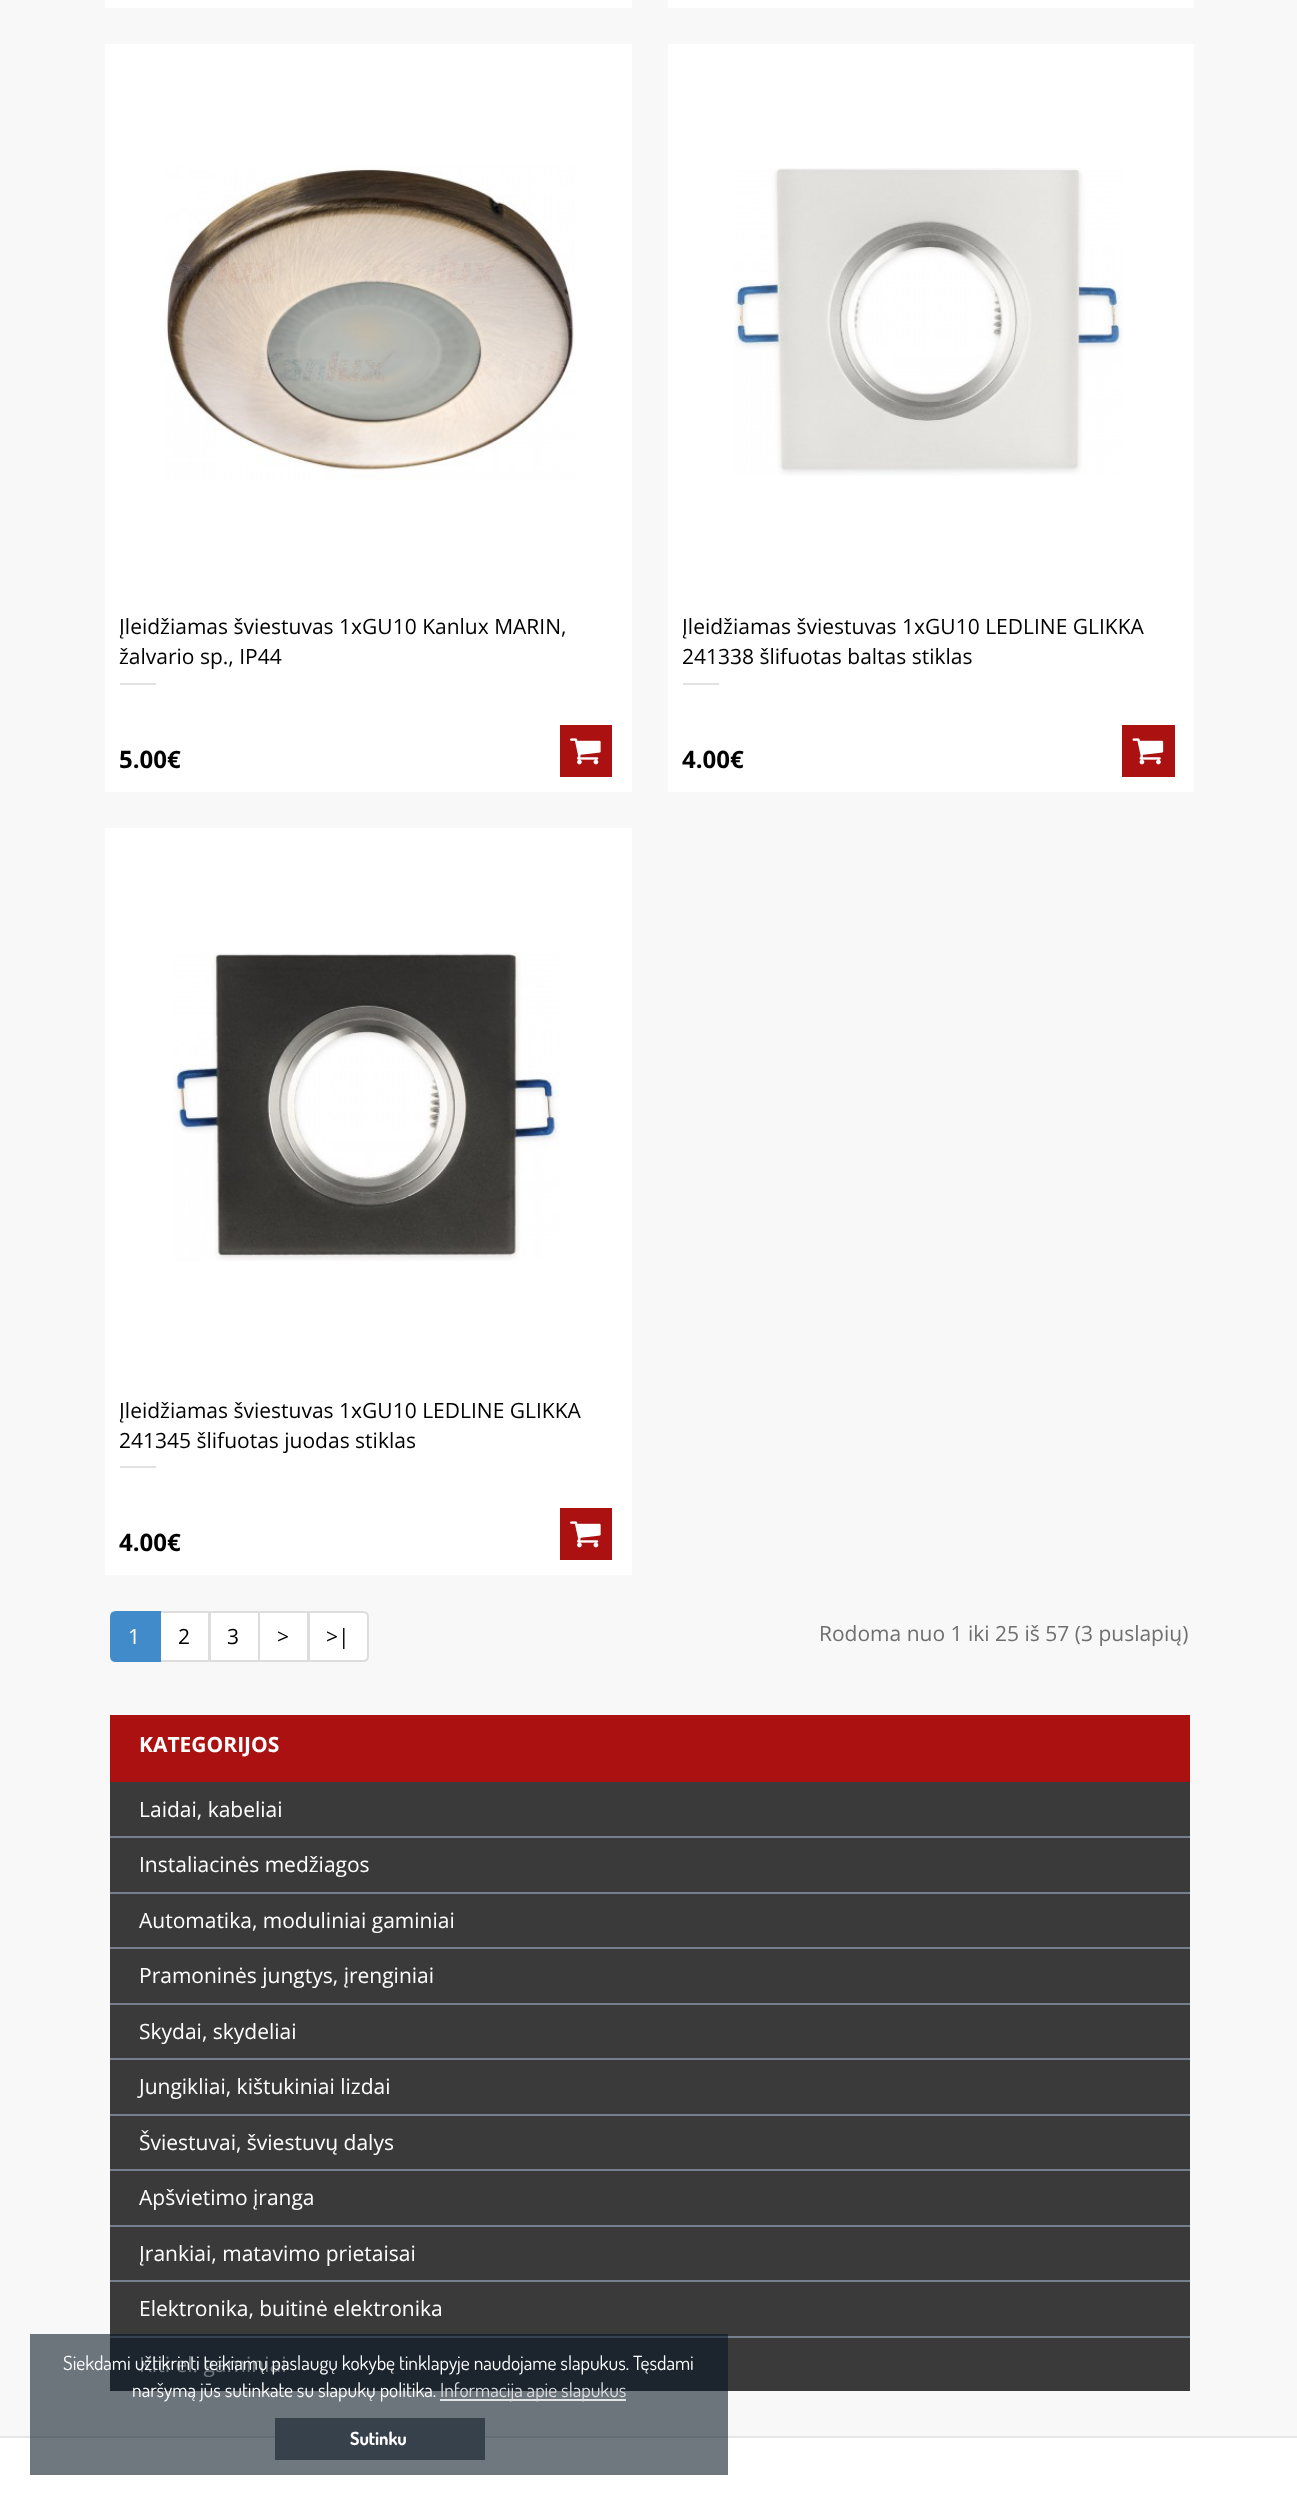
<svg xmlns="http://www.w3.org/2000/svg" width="1297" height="2505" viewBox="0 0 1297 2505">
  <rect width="100%" height="100%" fill="rgb(248,248,248)"/>
  <rect x="30" y="2334" width="698" height="102" fill="rgb(108,116,124)"/>
  <rect x="105" y="0" width="527" height="8" fill="rgb(255,255,255)"/>
  <rect x="668" y="0" width="526" height="8" fill="rgb(255,255,255)"/>
  <rect x="105" y="44" width="527" height="748" fill="rgb(255,255,255)"/>
  <image x="164" y="166" width="411" height="314" href="pic1.png"/>
  <g font-family="Open Sans" font-size="21" fill="rgb(0,0,0)">
    <text>
      <tspan x="119" y="634">Įleidžiamas šviestuvas 1xGU10 Kanlux MARIN,</tspan>
      <tspan x="119" y="664">žalvario sp., IP44</tspan>
    </text>
  </g>
  <rect x="120" y="683" width="36" height="2" fill="rgb(226,226,226)"/>
  <text x="119" y="768" font-family="Open Sans" font-size="24" font-weight="bold" fill="rgb(0,0,0)">5.00€</text>
  <rect x="560" y="725" width="52" height="52" fill="rgb(171,17,17)"/>
  <image x="570" y="738" width="31" height="27" href="pic2.png"/>
  <rect x="668" y="44" width="526" height="748" fill="rgb(255,255,255)"/>
  <image x="734" y="168" width="389" height="308" href="pic3.png"/>
  <g font-family="Open Sans" font-size="21" fill="rgb(0,0,0)">
    <text>
      <tspan x="682" y="634">Įleidžiamas šviestuvas 1xGU10 LEDLINE GLIKKA</tspan>
      <tspan x="682" y="664">241338 šlifuotas baltas stiklas</tspan>
    </text>
  </g>
  <rect x="683" y="683" width="36" height="2" fill="rgb(226,226,226)"/>
  <text x="682" y="768" font-family="Open Sans" font-size="24" font-weight="bold" fill="rgb(0,0,0)">4.00€</text>
  <rect x="1122" y="725" width="53" height="52" fill="rgb(171,17,17)"/>
  <image x="1132" y="738" width="32" height="27" href="pic4.png"/>
  <rect x="105" y="828" width="527" height="747" fill="rgb(255,255,255)"/>
  <image x="172" y="953" width="387" height="308" href="pic5.png"/>
  <g font-family="Open Sans" font-size="21" fill="rgb(0,0,0)">
    <text>
      <tspan x="119" y="1418">Įleidžiamas šviestuvas 1xGU10 LEDLINE GLIKKA</tspan>
      <tspan x="119" y="1448">241345 šlifuotas juodas stiklas</tspan>
    </text>
  </g>
  <rect x="120" y="1466" width="36" height="2" fill="rgb(226,226,226)"/>
  <text x="119" y="1551" font-family="Open Sans" font-size="24" font-weight="bold" fill="rgb(0,0,0)">4.00€</text>
  <rect x="560" y="1508" width="52" height="52" fill="rgb(171,17,17)"/>
  <image x="570" y="1521" width="31" height="27" href="pic2.png"/>
  <rect x="160" y="1612" width="49" height="49" fill="rgb(255,255,255)" stroke="rgb(221,221,221)" stroke-width="2"/>
  <path d="M116 1612H160V1661H116C113 1661 111 1659 111 1656V1617C111 1614 113 1612 116 1612Z" fill="rgb(66,139,202)" stroke="rgb(66,139,202)" stroke-width="2"/>
  <text x="128" y="1644" font-family="Open Sans" font-size="21" fill="rgb(255,255,255)">1</text>
  <text x="178" y="1644" font-family="Open Sans" font-size="21" fill="rgb(0,0,0)">2</text>
  <rect x="210" y="1612" width="49" height="49" fill="rgb(255,255,255)" stroke="rgb(221,221,221)" stroke-width="2"/>
  <text x="227" y="1644" font-family="Open Sans" font-size="21" fill="rgb(0,0,0)">3</text>
  <rect x="259" y="1612" width="49" height="49" fill="rgb(255,255,255)" stroke="rgb(221,221,221)" stroke-width="2"/>
  <text x="277" y="1644" font-family="Open Sans" font-size="21" fill="rgb(0,0,0)">&gt;</text>
  <path d="M309 1612H363C366 1612 368 1614 368 1617V1656C368 1659 366 1661 363 1661H309Z" fill="rgb(255,255,255)" stroke="rgb(221,221,221)" stroke-width="2"/>
  <text x="326" y="1644" font-family="Open Sans" font-size="21" fill="rgb(0,0,0)">&gt;|</text>
  <text x="819" y="1641" font-family="Open Sans" font-size="21" fill="rgb(111,111,111)">Rodoma nuo 1 iki 25 iš 57 (3 puslapių)</text>
  <rect x="110" y="1715" width="1080" height="67" fill="rgb(171,17,17)"/>
  <text x="139" y="1752" font-family="Open Sans" font-size="21" font-weight="bold" fill="rgb(255,255,255)">KATEGORIJOS</text>
  <rect x="110" y="1782" width="1080" height="609" fill="rgb(58,58,58)"/>
  <rect x="110" y="2334" width="618" height="57" fill="rgb(28,37,45)"/>
  <rect x="110" y="1836" width="1080" height="2" fill="rgb(117,127,141)"/>
  <text x="139" y="1817" font-family="Open Sans" font-size="21" fill="rgb(255,255,255)">Laidai, kabeliai</text>
  <rect x="110" y="1892" width="1080" height="2" fill="rgb(117,127,141)"/>
  <text x="139" y="1872" font-family="Open Sans" font-size="21" fill="rgb(255,255,255)">Instaliacinės medžiagos</text>
  <rect x="110" y="1947" width="1080" height="2" fill="rgb(117,127,141)"/>
  <text x="139" y="1928" font-family="Open Sans" font-size="21" fill="rgb(255,255,255)">Automatika, moduliniai gaminiai</text>
  <rect x="110" y="2003" width="1080" height="2" fill="rgb(117,127,141)"/>
  <text x="139" y="1983" font-family="Open Sans" font-size="21" fill="rgb(255,255,255)">Pramoninės jungtys, įrenginiai</text>
  <rect x="110" y="2058" width="1080" height="2" fill="rgb(117,127,141)"/>
  <text x="139" y="2039" font-family="Open Sans" font-size="21" fill="rgb(255,255,255)">Skydai, skydeliai</text>
  <rect x="110" y="2114" width="1080" height="2" fill="rgb(117,127,141)"/>
  <text x="139" y="2094" font-family="Open Sans" font-size="21" fill="rgb(255,255,255)">Jungikliai, kištukiniai lizdai</text>
  <rect x="110" y="2169" width="1080" height="2" fill="rgb(117,127,141)"/>
  <text x="139" y="2150" font-family="Open Sans" font-size="21" fill="rgb(255,255,255)">Šviestuvai, šviestuvų dalys</text>
  <rect x="110" y="2225" width="1080" height="2" fill="rgb(117,127,141)"/>
  <text x="139" y="2205" font-family="Open Sans" font-size="21" fill="rgb(255,255,255)">Apšvietimo įranga</text>
  <rect x="110" y="2280" width="1080" height="2" fill="rgb(117,127,141)"/>
  <text x="139" y="2261" font-family="Open Sans" font-size="21" fill="rgb(255,255,255)">Įrankiai, matavimo prietaisai</text>
  <rect x="728" y="2336" width="462" height="2" fill="rgb(117,127,141)"/>
  <rect x="110" y="2336" width="618" height="2" fill="rgb(53,66,80)"/>
  <text x="139" y="2316" font-family="Open Sans" font-size="21" fill="rgb(255,255,255)">Elektronika, buitinė elektronika</text>
  <text x="139" y="2372" font-family="Open Sans" font-size="21" fill="rgb(111,119,127)">Kiti el. gaminiai</text>
  <rect x="0" y="2438" width="1297" height="67" fill="rgb(255,255,255)"/>
  <rect x="30" y="2438" width="698" height="37" fill="rgb(111,119,127)"/>
  <rect x="0" y="2436" width="1297" height="2" fill="rgb(230,230,230)"/>
  <rect x="30" y="2436" width="698" height="2" fill="rgb(100,109,117)"/>
  <g font-family="Dosis" font-size="19.5" fill="rgb(255,255,255)">
    <text x="63" y="2370">Siekdami užtikrinti teikiamų paslaugų kokybę tinklapyje naudojame slapukus. Tęsdami</text>
    <text x="132" y="2397">naršymą jūs sutinkate su slapukų politika.</text>
  </g>
  <rect x="440" y="2399" width="186" height="2" fill="rgb(226,227,229)"/>
  <text x="440" y="2397" font-family="Dosis" font-size="19.5" fill="rgb(219,221,223)">Informacija apie slapukus</text>
  <rect x="275" y="2418" width="210" height="42" fill="rgb(55,65,76)"/>
  <text x="350" y="2445" font-family="Dosis" font-size="18" font-weight="bold" fill="rgb(255,255,255)">Sutinku</text>
</svg>
